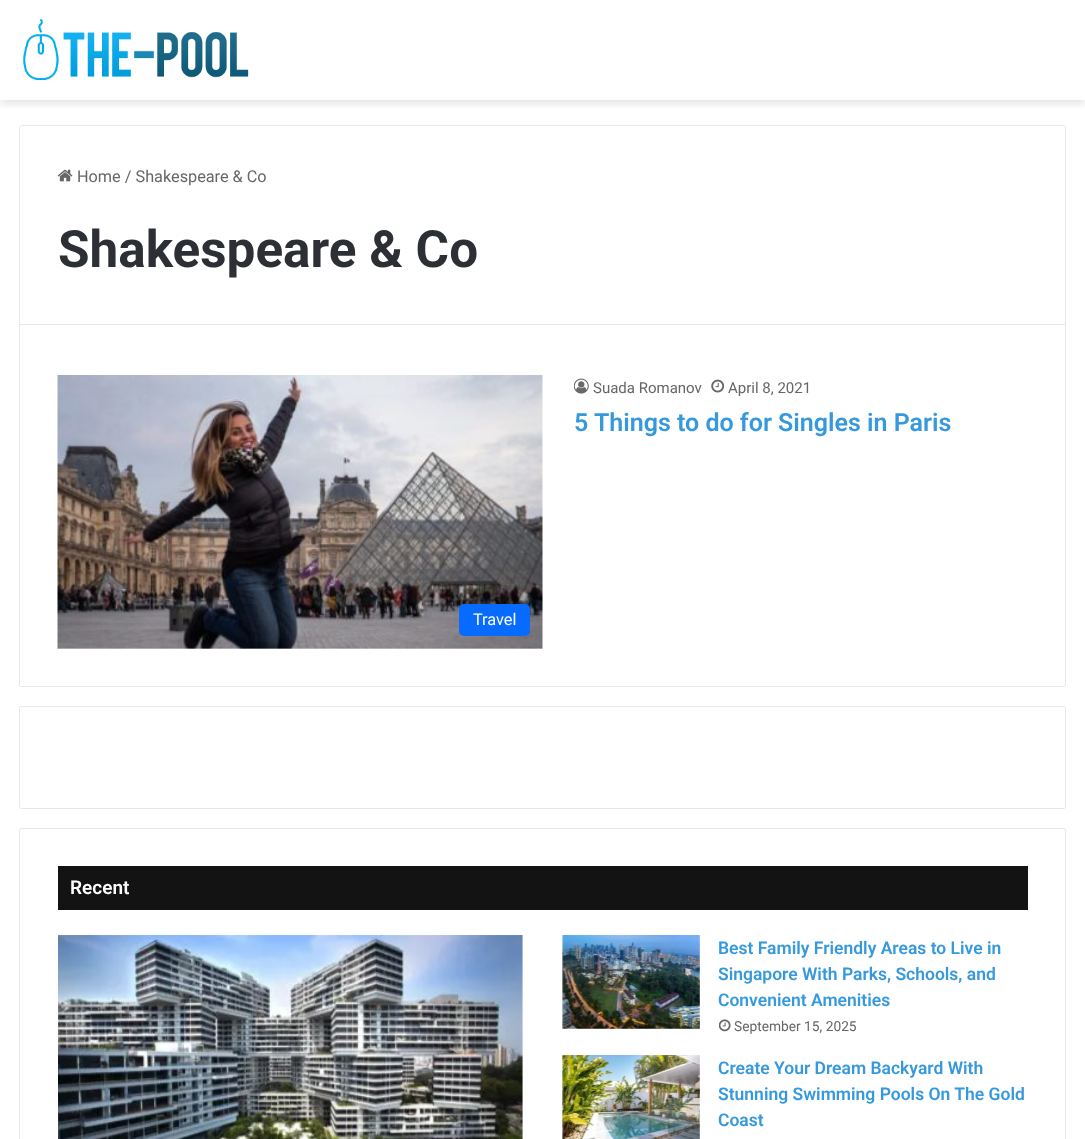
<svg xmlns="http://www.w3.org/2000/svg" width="1085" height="1139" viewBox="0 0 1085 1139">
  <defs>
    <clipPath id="clip1"><rect x="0" y="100" width="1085" height="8"/></clipPath>
  </defs>
  <rect width="100%" height="100%" fill="rgb(255,255,255)"/>
  <g clip-path="url(#clip1)">
    <rect x="0" y="4" width="1085" height="100" fill="rgba(0,0,0,0.1)" filter="blur(4.5px)"/>
  </g>
  <image x="23" y="19" width="226" height="61" href="pic1.png"/>
  <path d="M21.5 125.5H1063.5C1064.5 125.5 1065.5 126.5 1065.5 127.5V324.5H19.5V127.5C19.5 126.5 20.5 125.5 21.5 125.5Z" fill="none" stroke="rgb(230,230,230)"/>
  <image x="57" y="169" width="16" height="13" href="pic2.png"/>
  <text x="77" y="182" font-family="Roboto" font-size="16.25" fill="rgb(102,102,102)">Home / Shakespeare &amp; Co</text>
  <text x="58" y="267" font-family="Roboto" font-size="51.25" font-weight="bold" fill="rgb(44,47,52)">Shakespeare &amp; Co</text>
  <rect x="1065" y="325" width="1" height="361" fill="rgb(230,230,230)"/>
  <rect x="20" y="686" width="1045" height="1" fill="rgb(230,230,230)"/>
  <rect x="19" y="325" width="1" height="361" fill="rgb(230,230,230)"/>
  <image x="574" y="378" width="15" height="16" href="pic3.png"/>
  <text x="593" y="393" font-family="Roboto" font-size="15" fill="rgb(102,102,102)">Suada Romanov</text>
  <image x="711" y="379" width="14" height="14" href="pic4.png"/>
  <text x="728" y="393" font-family="Roboto" font-size="15" fill="rgb(102,102,102)">April 8, 2021</text>
  <text x="574" y="431" font-family="Roboto" font-size="25" font-weight="600" fill="rgb(54,153,219)">5 Things to do for Singles in Paris</text>
  <image x="57" y="375" width="486" height="274" href="pic5.png"/>
  <rect x="459" y="604" width="71" height="32" rx="5" fill="rgb(8,107,255)"/>
  <text x="473" y="625" font-family="Roboto" font-size="16.25" fill="rgb(255,255,255)">Travel</text>
  <rect x="19.5" y="706.5" width="1046" height="102" rx="2" fill="none" stroke="rgb(230,230,230)"/>
  <rect x="19.5" y="828.5" width="1046" height="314" rx="2" fill="none" stroke="rgb(230,230,230)"/>
  <rect x="58" y="866" width="970" height="44" fill="rgb(19,19,19)"/>
  <text x="70" y="894" font-family="Roboto" font-size="19" font-weight="600" fill="rgb(255,255,255)">Recent</text>
  <image x="58" y="935" width="465" height="204" href="pic6.png"/>
  <image x="562" y="935" width="138" height="94" href="pic7.png"/>
  <g font-family="Roboto" font-size="17.5" font-weight="600" fill="rgb(54,153,219)">
    <text>
      <tspan x="718" y="954">Best Family Friendly Areas to Live in</tspan>
      <tspan x="718" y="980">Singapore With Parks, Schools, and</tspan>
      <tspan x="718" y="1006">Convenient Amenities</tspan>
    </text>
  </g>
  <image x="719" y="1019" width="12" height="13" href="pic8.png"/>
  <text x="734" y="1031" font-family="Roboto" font-size="13.75" fill="rgb(102,102,102)">September 15, 2025</text>
  <image x="562" y="1055" width="138" height="84" href="pic9.png"/>
  <g font-family="Roboto" font-size="17.5" font-weight="600" fill="rgb(54,153,219)">
    <text>
      <tspan x="718" y="1074">Create Your Dream Backyard With</tspan>
      <tspan x="718" y="1100">Stunning Swimming Pools On The Gold</tspan>
      <tspan x="718" y="1126">Coast</tspan>
    </text>
  </g>
</svg>
